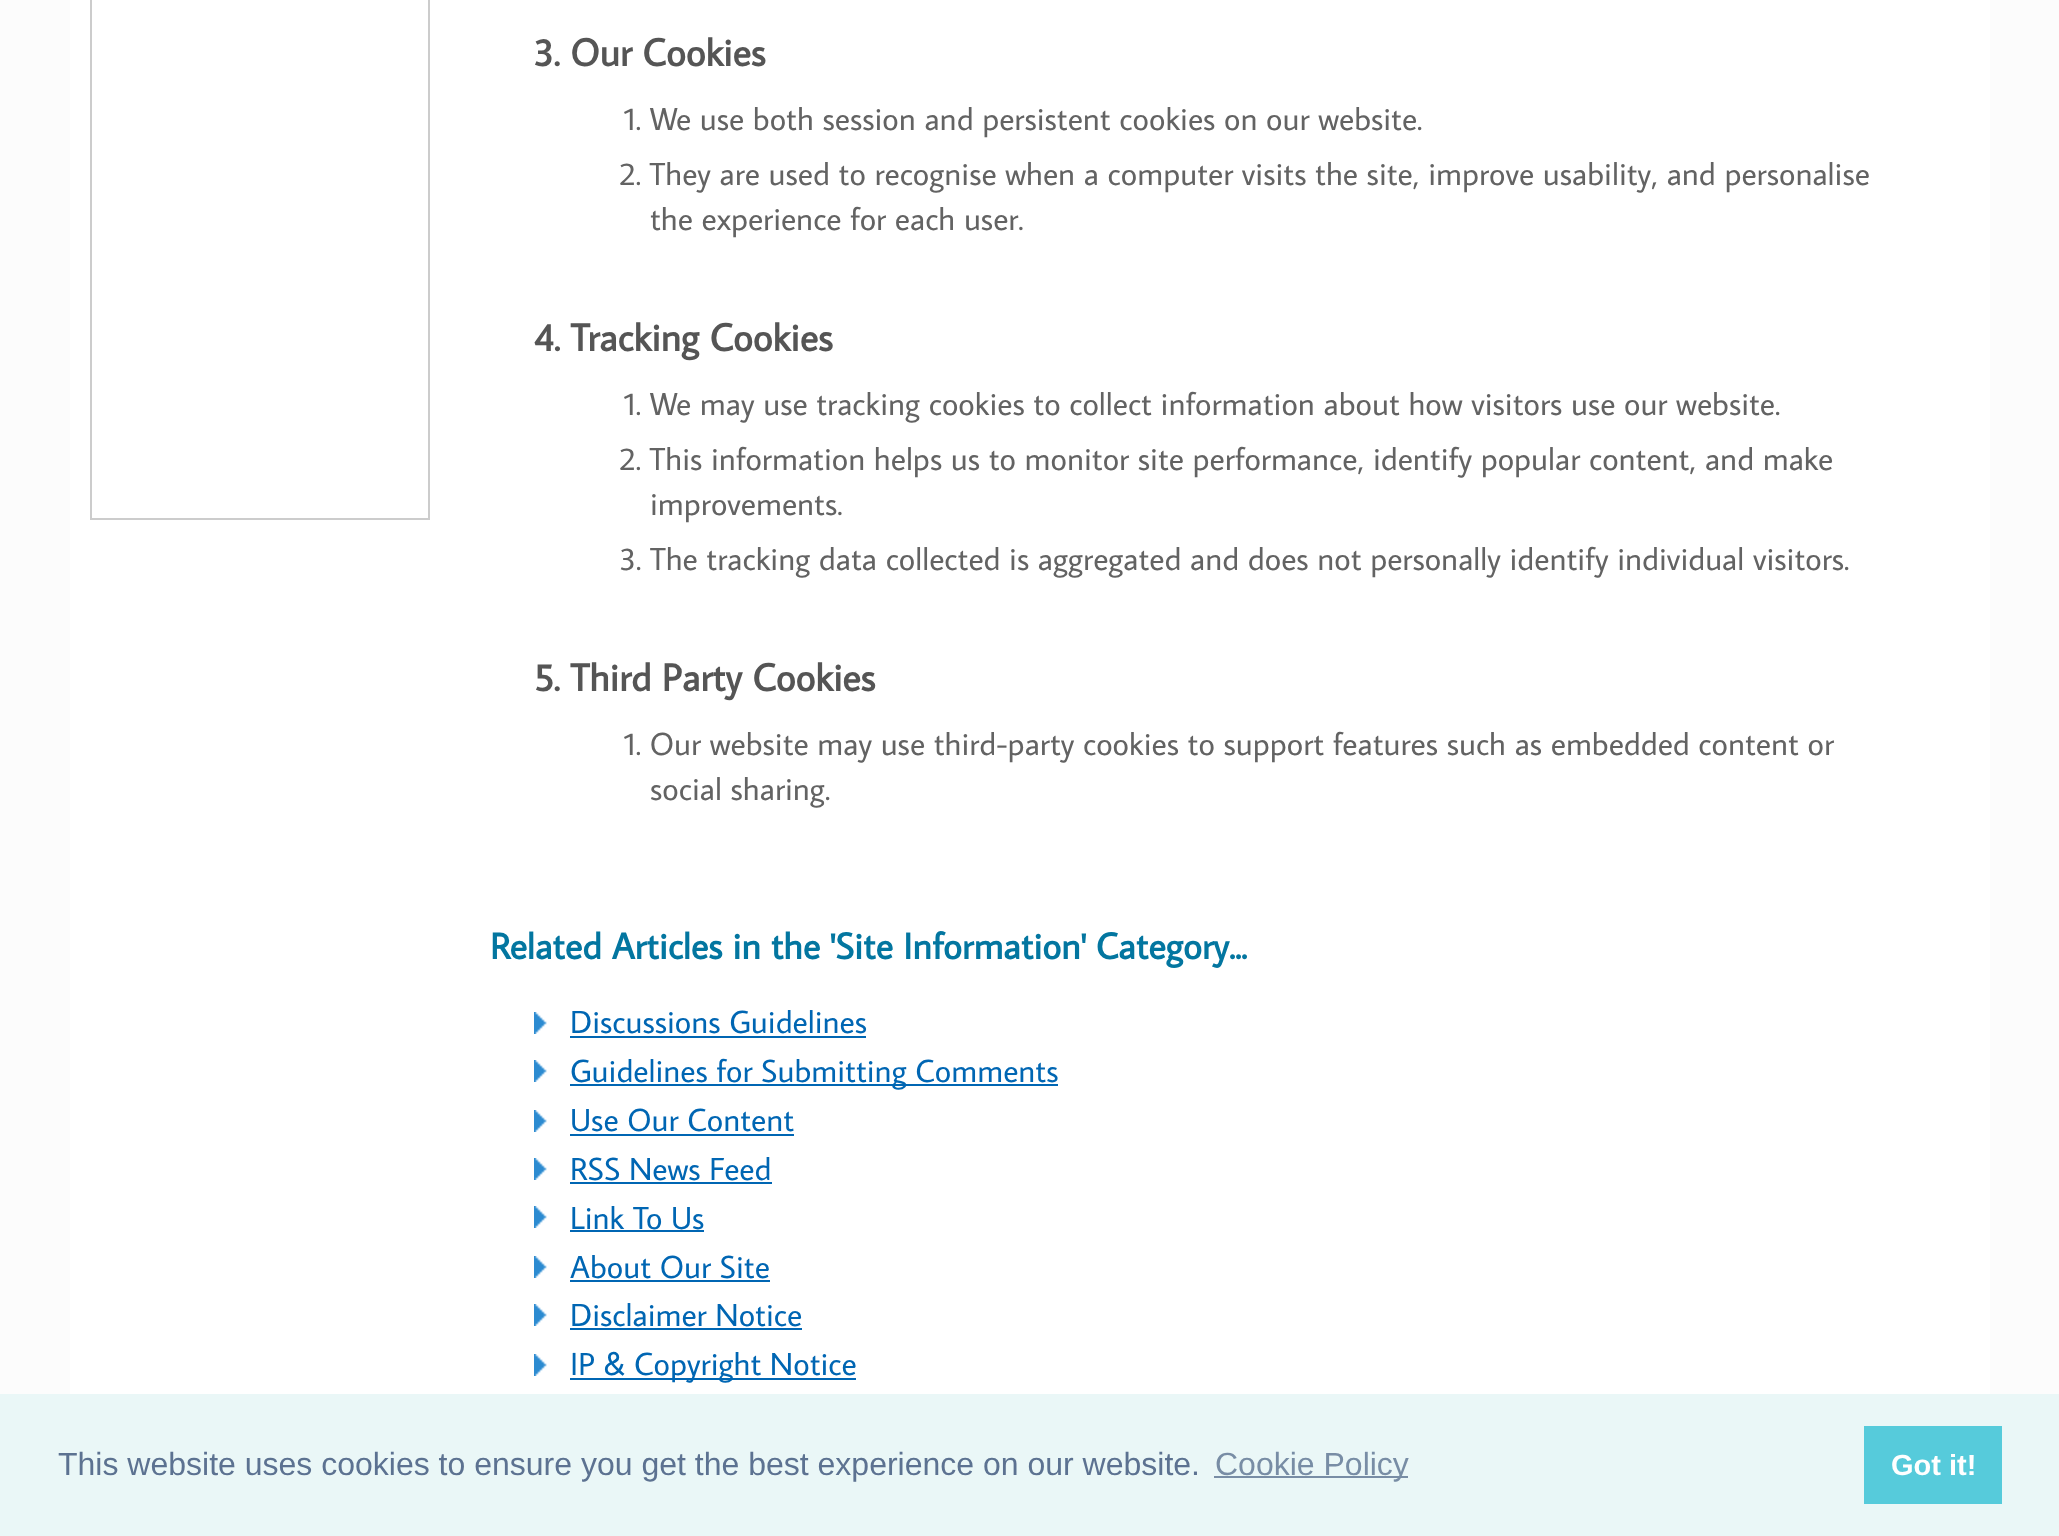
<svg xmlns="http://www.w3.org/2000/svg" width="2059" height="1536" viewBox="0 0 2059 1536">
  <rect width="100%" height="100%" fill="rgb(252,252,252)"/>
  <rect x="70" y="0" width="1920" height="1394" fill="rgb(255,255,255)"/>
  <rect x="91" y="-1" width="338" height="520" fill="none" stroke="rgb(204,204,204)" stroke-width="2"/>
  <text x="533" y="66" font-family="Average Sans" font-size="38.5" font-weight="bold" fill="rgb(85,85,85)">3. Our Cookies</text>
  <g font-family="Average Sans" font-size="32" fill="rgb(99,99,99)">
    <text x="624" y="130">1. We use both session and persistent cookies on our website.</text>
    <text x="619" y="185">2. They are used to recognise when a computer visits the site, improve usability, and personalise</text>
    <text x="650" y="230">the experience for each user.</text>
  </g>
  <text x="534" y="351" font-family="Average Sans" font-size="38.5" font-weight="bold" fill="rgb(85,85,85)">4. Tracking Cookies</text>
  <g font-family="Average Sans" font-size="32" fill="rgb(99,99,99)">
    <text x="624" y="415">1. We may use tracking cookies to collect information about how visitors use our website.</text>
    <text x="619" y="470">2. This information helps us to monitor site performance, identify popular content, and make</text>
    <text x="650" y="515">improvements.</text>
    <text x="619" y="570">3. The tracking data collected is aggregated and does not personally identify individual visitors.</text>
  </g>
  <text x="534" y="691" font-family="Average Sans" font-size="38.5" font-weight="bold" fill="rgb(85,85,85)">5. Third Party Cookies</text>
  <g font-family="Average Sans" font-size="32" fill="rgb(99,99,99)">
    <text x="624" y="755">1. Our website may use third-party cookies to support features such as embedded content or</text>
    <text x="650" y="800">social sharing.</text>
  </g>
  <text x="490" y="959" font-family="Average Sans" font-size="36.8" font-weight="bold" fill="rgb(3,118,160)">Related Articles in the 'Site Information' Category...</text>
  <image x="534" y="1012" width="13" height="22" href="pic1.png"/>
  <text x="570" y="1033" font-family="Average Sans" font-size="32" fill="rgb(0,102,179)">Discussions Guidelines</text>
  <rect x="570" y="1036" width="296" height="2" fill="rgb(0,102,179)"/>
  <image x="534" y="1060" width="13" height="22" href="pic1.png"/>
  <rect x="570" y="1084" width="488" height="2" fill="rgb(0,102,179)"/>
  <text x="570" y="1082" font-family="Average Sans" font-size="32" fill="rgb(0,102,179)">Guidelines for Submitting Comments</text>
  <image x="534" y="1110" width="13" height="22" href="pic1.png"/>
  <text x="570" y="1131" font-family="Average Sans" font-size="32" fill="rgb(0,102,179)">Use Our Content</text>
  <rect x="570" y="1134" width="224" height="2" fill="rgb(0,102,179)"/>
  <image x="534" y="1158" width="13" height="22" href="pic1.png"/>
  <text x="570" y="1180" font-family="Average Sans" font-size="32" fill="rgb(0,102,179)">RSS News Feed</text>
  <rect x="570" y="1182" width="202" height="2" fill="rgb(0,102,179)"/>
  <image x="534" y="1206" width="13" height="22" href="pic1.png"/>
  <text x="570" y="1229" font-family="Average Sans" font-size="32" fill="rgb(0,102,179)">Link To Us</text>
  <rect x="570" y="1230" width="134" height="2" fill="rgb(0,102,179)"/>
  <image x="534" y="1256" width="13" height="22" href="pic1.png"/>
  <text x="570" y="1278" font-family="Average Sans" font-size="32" fill="rgb(0,102,179)">About Our Site</text>
  <rect x="570" y="1280" width="200" height="2" fill="rgb(0,102,179)"/>
  <image x="534" y="1304" width="13" height="22" href="pic1.png"/>
  <text x="570" y="1326" font-family="Average Sans" font-size="32" fill="rgb(0,102,179)">Disclaimer Notice</text>
  <rect x="570" y="1328" width="232" height="2" fill="rgb(0,102,179)"/>
  <image x="534" y="1354" width="13" height="22" href="pic1.png"/>
  <rect x="570" y="1378" width="286" height="2" fill="rgb(0,102,179)"/>
  <text x="570" y="1375" font-family="Average Sans" font-size="32" fill="rgb(0,102,179)">IP &amp; Copyright Notice</text>
  <rect x="0" y="1394" width="2059" height="142" fill="rgb(234,247,247)"/>
  <text x="58" y="1475" font-family="Liberation Sans" font-size="32" fill="rgb(92,114,145)">This website uses cookies to ensure you get the best experience on our website.</text>
  <rect x="1214" y="1476" width="194" height="2" fill="rgb(120,141,165)"/>
  <text x="1215" y="1475" font-family="Liberation Sans" font-size="32" fill="rgb(120,141,165)">Cookie Policy</text>
  <rect x="1864" y="1426" width="138" height="78" fill="rgb(86,203,219)"/>
  <text x="1891" y="1475" font-family="Liberation Sans" font-size="29" font-weight="bold" fill="rgb(255,255,255)">Got it!</text>
</svg>
